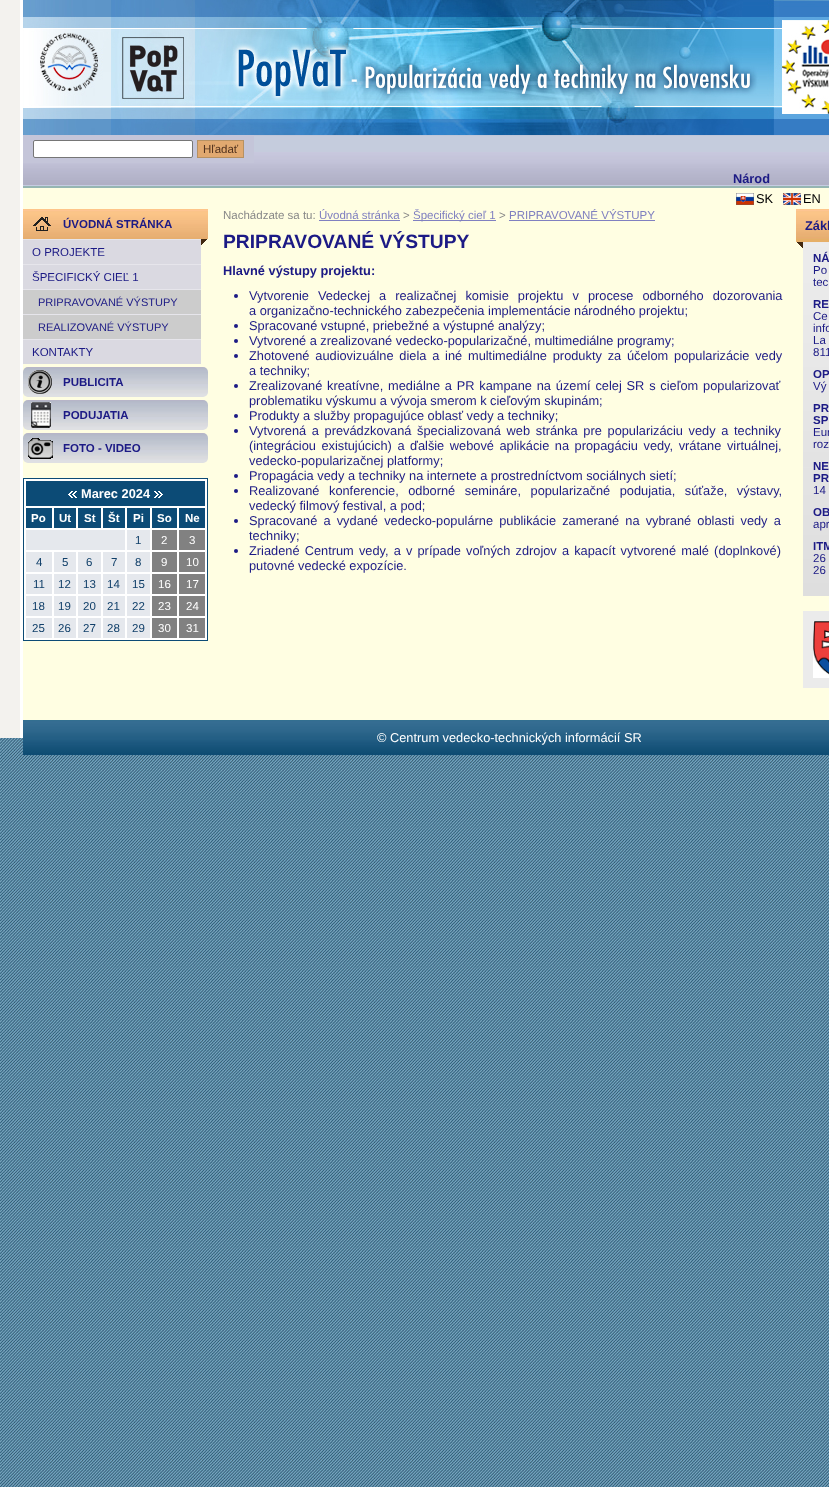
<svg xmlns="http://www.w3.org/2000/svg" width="829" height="1487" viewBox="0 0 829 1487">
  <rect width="100%" height="100%" fill="rgb(255,255,255)"/>
  <image x="0" y="738" width="829" height="749" href="pic1.png"/>
  <rect x="0" y="0" width="20" height="738" fill="rgb(243,242,238)"/>
  <image x="23" y="0" width="806" height="135" href="pic2.png"/>
  <rect x="254" y="135" width="575" height="1" fill="rgb(191,198,217)"/>
  <image x="23" y="136" width="806" height="50" href="pic3.png"/>
  <rect x="23" y="186" width="806" height="2" fill="rgb(149,181,178)"/>
  <rect x="23" y="135" width="231" height="28" fill="rgb(196,197,217)"/>
  <rect x="33.5" y="140.5" width="159" height="17" rx="1.5" fill="rgb(255,255,255)" stroke="rgb(118,118,118)"/>
  <rect x="197.5" y="140.5" width="46" height="17" fill="rgb(225,169,112)" stroke="rgb(183,145,98)"/>
  <text x="203" y="153" font-family="Liberation Sans" font-size="11.5" fill="rgb(81,50,30)">Hľadať</text>
  <text x="733" y="183" font-family="Liberation Sans" font-size="12.8" font-weight="bold" fill="rgb(28,26,133)">Národ</text>
  <rect x="23" y="188" width="806" height="532" fill="rgb(255,254,226)"/>
  <image x="736" y="193" width="18" height="12" href="pic4.png"/>
  <text x="756" y="203" font-family="Liberation Sans" font-size="12.8" fill="rgb(0,0,0)">SK</text>
  <image x="783" y="193" width="18" height="12" href="pic5.png"/>
  <text x="803" y="203" font-family="Liberation Sans" font-size="12.8" fill="rgb(0,0,0)">EN</text>
  <image x="23" y="209" width="185" height="30" href="pic6.png"/>
  <image x="33" y="217" width="18" height="14" href="pic7.png"/>
  <text x="63" y="228" font-family="Liberation Sans" font-size="11.5" font-weight="bold" fill="rgb(28,26,133)">ÚVODNÁ STRÁNKA</text>
  <image x="201" y="239" width="6" height="6" href="pic8.png"/>
  <rect x="23" y="239" width="178" height="1" fill="rgb(230,229,235)"/>
  <rect x="23" y="240" width="178" height="24" fill="rgb(218,217,225)"/>
  <text x="32" y="256" font-family="Liberation Sans" font-size="11.5" fill="rgb(28,26,133)">O PROJEKTE</text>
  <rect x="23" y="264" width="178" height="1" fill="rgb(230,229,235)"/>
  <rect x="23" y="265" width="178" height="24" fill="rgb(218,217,225)"/>
  <text x="32" y="281" font-family="Liberation Sans" font-size="11.5" fill="rgb(28,26,133)">ŠPECIFICKÝ CIEĽ 1</text>
  <rect x="23" y="289" width="178" height="1" fill="rgb(230,229,235)"/>
  <rect x="23" y="290" width="178" height="24" fill="rgb(204,204,204)"/>
  <text x="38" y="306" font-family="Liberation Sans" font-size="11" fill="rgb(28,26,133)">PRIPRAVOVANÉ VÝSTUPY</text>
  <rect x="23" y="314" width="178" height="1" fill="rgb(230,229,235)"/>
  <rect x="23" y="315" width="178" height="24" fill="rgb(204,204,204)"/>
  <text x="38" y="331" font-family="Liberation Sans" font-size="11" fill="rgb(28,26,133)">REALIZOVANÉ VÝSTUPY</text>
  <rect x="23" y="339" width="178" height="1" fill="rgb(230,229,235)"/>
  <rect x="23" y="340" width="178" height="24" fill="rgb(218,217,225)"/>
  <text x="32" y="356" font-family="Liberation Sans" font-size="11.5" fill="rgb(28,26,133)">KONTAKTY</text>
  <image x="23" y="367" width="185" height="30" href="pic9.png"/>
  <image x="28" y="370" width="24" height="24" href="pic10.png"/>
  <text x="63" y="386" font-family="Liberation Sans" font-size="11.5" font-weight="bold" fill="rgb(28,26,133)">PUBLICITA</text>
  <image x="23" y="400" width="185" height="30" href="pic9.png"/>
  <image x="31" y="402" width="20" height="26" href="pic11.png"/>
  <text x="63" y="419" font-family="Liberation Sans" font-size="11.5" font-weight="bold" fill="rgb(28,26,133)">PODUJATIA</text>
  <image x="23" y="433" width="185" height="30" href="pic9.png"/>
  <image x="28" y="438" width="25" height="21" href="pic12.png"/>
  <text x="63" y="452" font-family="Liberation Sans" font-size="11.5" font-weight="bold" fill="rgb(28,26,133)">FOTO - VIDEO</text>
  <rect x="23.5" y="478.5" width="184" height="162" fill="none" stroke="rgb(12,75,118)"/>
  <rect x="26" y="481" width="179" height="25" fill="rgb(12,75,118)"/>
  <rect x="24" y="479" width="183" height="2" fill="rgb(255,255,255)"/>
  <rect x="205" y="479" width="2" height="27" fill="rgb(255,255,255)"/>
  <rect x="24" y="479" width="2" height="27" fill="rgb(255,255,255)"/>
  <image x="68" y="491" width="9" height="7" href="pic13.png"/>
  <text x="81" y="498" font-family="Liberation Sans" font-size="12.8" font-weight="bold" fill="rgb(255,255,255)">Marec 2024</text>
  <image x="154" y="491" width="9" height="7" href="pic14.png"/>
  <rect x="26" y="508" width="26" height="20" fill="rgb(12,75,118)"/>
  <rect x="177" y="506" width="30" height="2" fill="rgb(255,255,255)"/>
  <rect x="177" y="528" width="30" height="2" fill="rgb(255,255,255)"/>
  <rect x="177" y="550" width="30" height="2" fill="rgb(255,255,255)"/>
  <rect x="177" y="572" width="30" height="2" fill="rgb(255,255,255)"/>
  <rect x="177" y="594" width="30" height="2" fill="rgb(255,255,255)"/>
  <rect x="177" y="616" width="30" height="2" fill="rgb(255,255,255)"/>
  <rect x="205" y="616" width="2" height="24" fill="rgb(255,255,255)"/>
  <rect x="177" y="638" width="30" height="2" fill="rgb(255,255,255)"/>
  <rect x="177" y="616" width="2" height="24" fill="rgb(255,255,255)"/>
  <rect x="150" y="616" width="29" height="2" fill="rgb(255,255,255)"/>
  <rect x="177" y="594" width="2" height="24" fill="rgb(255,255,255)"/>
  <rect x="150" y="594" width="29" height="2" fill="rgb(255,255,255)"/>
  <rect x="177" y="572" width="2" height="24" fill="rgb(255,255,255)"/>
  <rect x="150" y="572" width="29" height="2" fill="rgb(255,255,255)"/>
  <rect x="177" y="550" width="2" height="24" fill="rgb(255,255,255)"/>
  <rect x="150" y="550" width="29" height="2" fill="rgb(255,255,255)"/>
  <rect x="177" y="528" width="2" height="24" fill="rgb(255,255,255)"/>
  <rect x="150" y="528" width="29" height="2" fill="rgb(255,255,255)"/>
  <rect x="177" y="506" width="2" height="24" fill="rgb(255,255,255)"/>
  <rect x="150" y="506" width="29" height="2" fill="rgb(255,255,255)"/>
  <rect x="150" y="638" width="29" height="2" fill="rgb(255,255,255)"/>
  <rect x="150" y="616" width="2" height="24" fill="rgb(255,255,255)"/>
  <rect x="125" y="616" width="27" height="2" fill="rgb(255,255,255)"/>
  <rect x="150" y="594" width="2" height="24" fill="rgb(255,255,255)"/>
  <rect x="125" y="594" width="27" height="2" fill="rgb(255,255,255)"/>
  <rect x="150" y="572" width="2" height="24" fill="rgb(255,255,255)"/>
  <rect x="125" y="572" width="27" height="2" fill="rgb(255,255,255)"/>
  <rect x="150" y="550" width="2" height="24" fill="rgb(255,255,255)"/>
  <rect x="125" y="550" width="27" height="2" fill="rgb(255,255,255)"/>
  <rect x="150" y="528" width="2" height="24" fill="rgb(255,255,255)"/>
  <rect x="125" y="528" width="27" height="2" fill="rgb(255,255,255)"/>
  <rect x="150" y="506" width="2" height="24" fill="rgb(255,255,255)"/>
  <rect x="125" y="506" width="27" height="2" fill="rgb(255,255,255)"/>
  <rect x="125" y="638" width="27" height="2" fill="rgb(255,255,255)"/>
  <rect x="125" y="616" width="2" height="24" fill="rgb(255,255,255)"/>
  <rect x="101" y="616" width="26" height="2" fill="rgb(255,255,255)"/>
  <rect x="125" y="594" width="2" height="24" fill="rgb(255,255,255)"/>
  <rect x="101" y="594" width="26" height="2" fill="rgb(255,255,255)"/>
  <rect x="125" y="572" width="2" height="24" fill="rgb(255,255,255)"/>
  <rect x="101" y="572" width="26" height="2" fill="rgb(255,255,255)"/>
  <rect x="125" y="550" width="2" height="24" fill="rgb(255,255,255)"/>
  <rect x="101" y="550" width="26" height="2" fill="rgb(255,255,255)"/>
  <rect x="125" y="528" width="2" height="24" fill="rgb(255,255,255)"/>
  <rect x="24" y="528" width="103" height="2" fill="rgb(255,255,255)"/>
  <rect x="125" y="506" width="2" height="24" fill="rgb(255,255,255)"/>
  <rect x="101" y="506" width="26" height="2" fill="rgb(255,255,255)"/>
  <rect x="101" y="506" width="2" height="24" fill="rgb(255,255,255)"/>
  <rect x="76" y="506" width="27" height="2" fill="rgb(255,255,255)"/>
  <rect x="76" y="506" width="2" height="24" fill="rgb(255,255,255)"/>
  <rect x="52" y="506" width="26" height="2" fill="rgb(255,255,255)"/>
  <rect x="52" y="506" width="2" height="24" fill="rgb(255,255,255)"/>
  <rect x="24" y="506" width="30" height="2" fill="rgb(255,255,255)"/>
  <rect x="101" y="638" width="26" height="2" fill="rgb(255,255,255)"/>
  <rect x="101" y="616" width="2" height="24" fill="rgb(255,255,255)"/>
  <rect x="76" y="616" width="27" height="2" fill="rgb(255,255,255)"/>
  <rect x="101" y="594" width="2" height="24" fill="rgb(255,255,255)"/>
  <rect x="76" y="594" width="27" height="2" fill="rgb(255,255,255)"/>
  <rect x="101" y="572" width="2" height="24" fill="rgb(255,255,255)"/>
  <rect x="76" y="572" width="27" height="2" fill="rgb(255,255,255)"/>
  <rect x="101" y="550" width="2" height="24" fill="rgb(255,255,255)"/>
  <rect x="76" y="550" width="27" height="2" fill="rgb(255,255,255)"/>
  <rect x="76" y="638" width="27" height="2" fill="rgb(255,255,255)"/>
  <rect x="76" y="616" width="2" height="24" fill="rgb(255,255,255)"/>
  <rect x="52" y="616" width="26" height="2" fill="rgb(255,255,255)"/>
  <rect x="76" y="594" width="2" height="24" fill="rgb(255,255,255)"/>
  <rect x="52" y="594" width="26" height="2" fill="rgb(255,255,255)"/>
  <rect x="76" y="572" width="2" height="24" fill="rgb(255,255,255)"/>
  <rect x="52" y="572" width="26" height="2" fill="rgb(255,255,255)"/>
  <rect x="76" y="550" width="2" height="24" fill="rgb(255,255,255)"/>
  <rect x="52" y="550" width="26" height="2" fill="rgb(255,255,255)"/>
  <rect x="52" y="638" width="26" height="2" fill="rgb(255,255,255)"/>
  <rect x="52" y="616" width="2" height="24" fill="rgb(255,255,255)"/>
  <rect x="24" y="616" width="30" height="2" fill="rgb(255,255,255)"/>
  <rect x="52" y="594" width="2" height="24" fill="rgb(255,255,255)"/>
  <rect x="24" y="594" width="30" height="2" fill="rgb(255,255,255)"/>
  <rect x="52" y="572" width="2" height="24" fill="rgb(255,255,255)"/>
  <rect x="24" y="572" width="30" height="2" fill="rgb(255,255,255)"/>
  <rect x="52" y="550" width="2" height="24" fill="rgb(255,255,255)"/>
  <rect x="24" y="550" width="30" height="2" fill="rgb(255,255,255)"/>
  <rect x="24" y="638" width="30" height="2" fill="rgb(255,255,255)"/>
  <rect x="24" y="616" width="2" height="24" fill="rgb(255,255,255)"/>
  <rect x="24" y="594" width="2" height="24" fill="rgb(255,255,255)"/>
  <rect x="24" y="572" width="2" height="24" fill="rgb(255,255,255)"/>
  <rect x="24" y="550" width="2" height="24" fill="rgb(255,255,255)"/>
  <rect x="24" y="528" width="2" height="24" fill="rgb(255,255,255)"/>
  <rect x="24" y="506" width="2" height="24" fill="rgb(255,255,255)"/>
  <text x="31" y="522" font-family="Liberation Sans" font-size="11.5" font-weight="bold" fill="rgb(255,255,255)">Po</text>
  <rect x="54" y="508" width="22" height="20" fill="rgb(12,75,118)"/>
  <text x="59" y="522" font-family="Liberation Sans" font-size="11.5" font-weight="bold" fill="rgb(255,255,255)">Ut</text>
  <rect x="78" y="508" width="23" height="20" fill="rgb(12,75,118)"/>
  <text x="84" y="522" font-family="Liberation Sans" font-size="11.5" font-weight="bold" fill="rgb(255,255,255)">St</text>
  <rect x="103" y="508" width="22" height="20" fill="rgb(12,75,118)"/>
  <text x="108" y="522" font-family="Liberation Sans" font-size="11.5" font-weight="bold" fill="rgb(255,255,255)">Št</text>
  <rect x="127" y="508" width="23" height="20" fill="rgb(12,75,118)"/>
  <text x="133" y="522" font-family="Liberation Sans" font-size="11.5" font-weight="bold" fill="rgb(255,255,255)">Pi</text>
  <rect x="152" y="508" width="25" height="20" fill="rgb(12,75,118)"/>
  <text x="157" y="522" font-family="Liberation Sans" font-size="11.5" font-weight="bold" fill="rgb(255,255,255)">So</text>
  <rect x="179" y="508" width="26" height="20" fill="rgb(12,75,118)"/>
  <rect x="205" y="594" width="2" height="24" fill="rgb(255,255,255)"/>
  <rect x="205" y="572" width="2" height="24" fill="rgb(255,255,255)"/>
  <rect x="205" y="550" width="2" height="24" fill="rgb(255,255,255)"/>
  <rect x="205" y="528" width="2" height="24" fill="rgb(255,255,255)"/>
  <rect x="205" y="506" width="2" height="24" fill="rgb(255,255,255)"/>
  <text x="185" y="522" font-family="Liberation Sans" font-size="11.5" font-weight="bold" fill="rgb(255,255,255)">Ne</text>
  <rect x="26" y="530" width="99" height="20" fill="rgb(229,232,237)"/>
  <rect x="127" y="530" width="23" height="20" fill="rgb(229,232,237)"/>
  <text x="135" y="544" font-family="Liberation Sans" font-size="11.5" fill="rgb(16,63,105)">1</text>
  <rect x="152" y="530" width="25" height="20" fill="rgb(129,129,129)"/>
  <text x="161" y="544" font-family="Liberation Sans" font-size="11.5" fill="rgb(255,255,255)">2</text>
  <rect x="179" y="530" width="26" height="20" fill="rgb(129,129,129)"/>
  <text x="189" y="544" font-family="Liberation Sans" font-size="11.5" fill="rgb(255,255,255)">3</text>
  <rect x="26" y="552" width="26" height="20" fill="rgb(229,232,237)"/>
  <text x="36" y="566" font-family="Liberation Sans" font-size="11.5" fill="rgb(16,63,105)">4</text>
  <rect x="54" y="552" width="22" height="20" fill="rgb(229,232,237)"/>
  <text x="62" y="566" font-family="Liberation Sans" font-size="11.5" fill="rgb(16,63,105)">5</text>
  <rect x="78" y="552" width="23" height="20" fill="rgb(229,232,237)"/>
  <text x="86" y="566" font-family="Liberation Sans" font-size="11.5" fill="rgb(16,63,105)">6</text>
  <rect x="103" y="552" width="22" height="20" fill="rgb(229,232,237)"/>
  <text x="111" y="566" font-family="Liberation Sans" font-size="11.5" fill="rgb(16,63,105)">7</text>
  <rect x="127" y="552" width="23" height="20" fill="rgb(229,232,237)"/>
  <text x="135" y="566" font-family="Liberation Sans" font-size="11.5" fill="rgb(16,63,105)">8</text>
  <rect x="152" y="552" width="25" height="20" fill="rgb(129,129,129)"/>
  <text x="161" y="566" font-family="Liberation Sans" font-size="11.5" fill="rgb(255,255,255)">9</text>
  <rect x="179" y="552" width="26" height="20" fill="rgb(129,129,129)"/>
  <text x="186" y="566" font-family="Liberation Sans" font-size="11.5" fill="rgb(255,255,255)">10</text>
  <rect x="26" y="574" width="26" height="20" fill="rgb(229,232,237)"/>
  <text x="33" y="588" font-family="Liberation Sans" font-size="11.5" fill="rgb(16,63,105)">11</text>
  <rect x="54" y="574" width="22" height="20" fill="rgb(229,232,237)"/>
  <text x="58" y="588" font-family="Liberation Sans" font-size="11.5" fill="rgb(16,63,105)">12</text>
  <rect x="78" y="574" width="23" height="20" fill="rgb(229,232,237)"/>
  <text x="83" y="588" font-family="Liberation Sans" font-size="11.5" fill="rgb(16,63,105)">13</text>
  <rect x="103" y="574" width="22" height="20" fill="rgb(229,232,237)"/>
  <text x="107" y="588" font-family="Liberation Sans" font-size="11.5" fill="rgb(16,63,105)">14</text>
  <rect x="127" y="574" width="23" height="20" fill="rgb(229,232,237)"/>
  <text x="132" y="588" font-family="Liberation Sans" font-size="11.5" fill="rgb(16,63,105)">15</text>
  <rect x="152" y="574" width="25" height="20" fill="rgb(129,129,129)"/>
  <text x="158" y="588" font-family="Liberation Sans" font-size="11.5" fill="rgb(255,255,255)">16</text>
  <rect x="179" y="574" width="26" height="20" fill="rgb(129,129,129)"/>
  <text x="186" y="588" font-family="Liberation Sans" font-size="11.5" fill="rgb(255,255,255)">17</text>
  <rect x="26" y="596" width="26" height="20" fill="rgb(229,232,237)"/>
  <text x="32" y="610" font-family="Liberation Sans" font-size="11.5" fill="rgb(16,63,105)">18</text>
  <rect x="54" y="596" width="22" height="20" fill="rgb(229,232,237)"/>
  <text x="58" y="610" font-family="Liberation Sans" font-size="11.5" fill="rgb(16,63,105)">19</text>
  <rect x="78" y="596" width="23" height="20" fill="rgb(229,232,237)"/>
  <text x="83" y="610" font-family="Liberation Sans" font-size="11.5" fill="rgb(16,63,105)">20</text>
  <rect x="103" y="596" width="22" height="20" fill="rgb(229,232,237)"/>
  <text x="107" y="610" font-family="Liberation Sans" font-size="11.5" fill="rgb(16,63,105)">21</text>
  <rect x="127" y="596" width="23" height="20" fill="rgb(229,232,237)"/>
  <text x="132" y="610" font-family="Liberation Sans" font-size="11.5" fill="rgb(16,63,105)">22</text>
  <rect x="152" y="596" width="25" height="20" fill="rgb(129,129,129)"/>
  <text x="158" y="610" font-family="Liberation Sans" font-size="11.5" fill="rgb(255,255,255)">23</text>
  <rect x="179" y="596" width="26" height="20" fill="rgb(129,129,129)"/>
  <text x="186" y="610" font-family="Liberation Sans" font-size="11.5" fill="rgb(255,255,255)">24</text>
  <rect x="26" y="618" width="26" height="20" fill="rgb(229,232,237)"/>
  <text x="32" y="632" font-family="Liberation Sans" font-size="11.5" fill="rgb(16,63,105)">25</text>
  <rect x="54" y="618" width="22" height="20" fill="rgb(229,232,237)"/>
  <text x="58" y="632" font-family="Liberation Sans" font-size="11.5" fill="rgb(16,63,105)">26</text>
  <rect x="78" y="618" width="23" height="20" fill="rgb(229,232,237)"/>
  <text x="83" y="632" font-family="Liberation Sans" font-size="11.5" fill="rgb(16,63,105)">27</text>
  <rect x="103" y="618" width="22" height="20" fill="rgb(229,232,237)"/>
  <text x="107" y="632" font-family="Liberation Sans" font-size="11.5" fill="rgb(16,63,105)">28</text>
  <rect x="127" y="618" width="23" height="20" fill="rgb(229,232,237)"/>
  <text x="132" y="632" font-family="Liberation Sans" font-size="11.5" fill="rgb(16,63,105)">29</text>
  <rect x="152" y="618" width="25" height="20" fill="rgb(129,129,129)"/>
  <text x="158" y="632" font-family="Liberation Sans" font-size="11.5" fill="rgb(255,255,255)">30</text>
  <rect x="179" y="618" width="26" height="20" fill="rgb(129,129,129)"/>
  <text x="186" y="632" font-family="Liberation Sans" font-size="11.5" fill="rgb(255,255,255)">31</text>
  <text x="223" y="219" font-family="Liberation Sans" font-size="11.5" fill="rgb(136,136,136)">Nachádzate sa tu:</text>
  <text x="319" y="219" font-family="Liberation Sans" font-size="11.5" fill="rgb(128,128,192)">Úvodná stránka</text>
  <rect x="319" y="220" width="81" height="1" fill="rgb(128,128,192)"/>
  <text x="403" y="219" font-family="Liberation Sans" font-size="11.5" fill="rgb(136,136,136)">&gt;</text>
  <rect x="413" y="220" width="83" height="1" fill="rgb(128,128,192)"/>
  <text x="413" y="219" font-family="Liberation Sans" font-size="11.5" fill="rgb(128,128,192)">Špecifický cieľ 1</text>
  <text x="499" y="219" font-family="Liberation Sans" font-size="11.5" fill="rgb(136,136,136)">&gt;</text>
  <text x="509" y="219" font-family="Liberation Sans" font-size="11.5" fill="rgb(128,128,192)">PRIPRAVOVANÉ VÝSTUPY</text>
  <rect x="509" y="220" width="146" height="1" fill="rgb(128,128,192)"/>
  <text x="223" y="248" font-family="Liberation Sans" font-size="19.25" font-weight="bold" fill="rgb(28,26,133)">PRIPRAVOVANÉ VÝSTUPY</text>
  <text x="223" y="275" font-family="Liberation Sans" font-size="12.8" font-weight="bold" fill="rgb(28,26,133)">Hlavné výstupy projektu:</text>
  <circle cx="236" cy="296" r="2" fill="rgb(28,26,133)"/>
  <g font-family="Liberation Sans" font-size="12.8" fill="rgb(28,26,133)">
    <text>
      <tspan x="249" y="300" word-spacing="5.5">Vytvorenie Vedeckej a realizačnej komisie projektu v procese odborného dozorovania</tspan>
      <tspan x="249" y="315">a organizačno-technického zabezpečenia implementácie národného projektu;</tspan>
    </text>
  </g>
  <circle cx="236" cy="326" r="2" fill="rgb(28,26,133)"/>
  <text x="249" y="330" font-family="Liberation Sans" font-size="12.8" fill="rgb(28,26,133)">Spracované vstupné, priebežné a výstupné analýzy;</text>
  <circle cx="236" cy="341" r="2" fill="rgb(28,26,133)"/>
  <text x="249" y="345" font-family="Liberation Sans" font-size="12.8" fill="rgb(28,26,133)">Vytvorené a zrealizované vedecko-popularizačné, multimediálne programy;</text>
  <circle cx="236" cy="356" r="2" fill="rgb(28,26,133)"/>
  <g font-family="Liberation Sans" font-size="12.8" fill="rgb(28,26,133)">
    <text>
      <tspan x="249" y="360" word-spacing="2.25">Zhotovené audiovizuálne diela a iné multimediálne produkty za účelom popularizácie vedy</tspan>
      <tspan x="249" y="375">a techniky;</tspan>
    </text>
  </g>
  <circle cx="236" cy="386" r="2" fill="rgb(28,26,133)"/>
  <g font-family="Liberation Sans" font-size="12.8" fill="rgb(28,26,133)">
    <text>
      <tspan x="249" y="390" word-spacing="1.25">Zrealizované kreatívne, mediálne a PR kampane na území celej SR s cieľom popularizovať</tspan>
      <tspan x="249" y="405">problematiku výskumu a vývoja smerom k cieľovým skupinám;</tspan>
    </text>
  </g>
  <circle cx="236" cy="416" r="2" fill="rgb(28,26,133)"/>
  <text x="249" y="420" font-family="Liberation Sans" font-size="12.8" fill="rgb(28,26,133)">Produkty a služby propagujúce oblasť vedy a techniky;</text>
  <circle cx="236" cy="431" r="2" fill="rgb(28,26,133)"/>
  <g font-family="Liberation Sans" font-size="12.8" fill="rgb(28,26,133)">
    <text>
      <tspan x="249" y="435" word-spacing="2.1">Vytvorená a prevádzkovaná špecializovaná web stránka pre popularizáciu vedy a techniky</tspan>
      <tspan x="249" y="450" word-spacing="2">(integráciou existujúcich) a ďalšie webové aplikácie na propagáciu vedy, vrátane virtuálnej,</tspan>
      <tspan x="249" y="465">vedecko-popularizačnej platformy;</tspan>
    </text>
  </g>
  <circle cx="236" cy="476" r="2" fill="rgb(28,26,133)"/>
  <text x="249" y="480" font-family="Liberation Sans" font-size="12.8" fill="rgb(28,26,133)">Propagácia vedy a techniky na internete a prostredníctvom sociálnych sietí;</text>
  <circle cx="236" cy="491" r="2" fill="rgb(28,26,133)"/>
  <g font-family="Liberation Sans" font-size="12.8" fill="rgb(28,26,133)">
    <text>
      <tspan x="249" y="495" word-spacing="6">Realizované konferencie, odborné semináre, popularizačné podujatia, súťaže, výstavy,</tspan>
      <tspan x="249" y="510">vedecký filmový festival, a pod;</tspan>
    </text>
  </g>
  <circle cx="236" cy="521" r="2" fill="rgb(28,26,133)"/>
  <g font-family="Liberation Sans" font-size="12.8" fill="rgb(28,26,133)">
    <text>
      <tspan x="249" y="525" word-spacing="2.6">Spracované a vydané vedecko-populárne publikácie zamerané na vybrané oblasti vedy a</tspan>
      <tspan x="249" y="540">techniky;</tspan>
    </text>
  </g>
  <circle cx="236" cy="551" r="2" fill="rgb(28,26,133)"/>
  <g font-family="Liberation Sans" font-size="12.8" fill="rgb(28,26,133)">
    <text>
      <tspan x="249" y="555" word-spacing="1.6">Zriadené Centrum vedy, a v prípade voľných zdrojov a kapacít vytvorené malé (doplnkové)</tspan>
      <tspan x="249" y="570">putovné vedecké expozície.</tspan>
    </text>
  </g>
  <image x="796" y="209" width="33" height="33" href="pic15.png"/>
  <text x="805" y="230" font-family="Liberation Sans" font-size="12.8" font-weight="bold" fill="rgb(28,26,133)">Zákl</text>
  <image x="797" y="242" width="6" height="6" href="pic16.png"/>
  <image x="803" y="242" width="26" height="354" href="pic17.png"/>
  <text x="813" y="262" font-family="Liberation Sans" font-size="11.5" font-weight="bold" fill="rgb(28,26,133)">NÁ</text>
  <g font-family="Liberation Sans" font-size="11.5" fill="rgb(28,26,133)">
    <text>
      <tspan x="813" y="274">Po</tspan>
      <tspan x="813" y="286">tec</tspan>
    </text>
  </g>
  <text x="813" y="308" font-family="Liberation Sans" font-size="11.5" font-weight="bold" fill="rgb(28,26,133)">RE</text>
  <g font-family="Liberation Sans" font-size="11.5" fill="rgb(28,26,133)">
    <text>
      <tspan x="813" y="320">Ce</tspan>
      <tspan x="813" y="332">info</tspan>
      <tspan x="813" y="344">La</tspan>
      <tspan x="813" y="356">811</tspan>
    </text>
  </g>
  <text x="813" y="378" font-family="Liberation Sans" font-size="11.5" font-weight="bold" fill="rgb(28,26,133)">OP</text>
  <text x="813" y="390" font-family="Liberation Sans" font-size="11.5" fill="rgb(28,26,133)">Vý</text>
  <g font-family="Liberation Sans" font-size="11.5" font-weight="bold" fill="rgb(28,26,133)">
    <text>
      <tspan x="813" y="412">PR</tspan>
      <tspan x="813" y="424">SP</tspan>
    </text>
  </g>
  <g font-family="Liberation Sans" font-size="11.5" fill="rgb(28,26,133)">
    <text>
      <tspan x="813" y="436">Eur</tspan>
      <tspan x="813" y="448">roz</tspan>
    </text>
  </g>
  <g font-family="Liberation Sans" font-size="11.5" font-weight="bold" fill="rgb(28,26,133)">
    <text>
      <tspan x="813" y="470">NE</tspan>
      <tspan x="813" y="482">PR</tspan>
    </text>
  </g>
  <text x="813" y="494" font-family="Liberation Sans" font-size="11.5" fill="rgb(28,26,133)">14</text>
  <text x="813" y="516" font-family="Liberation Sans" font-size="11.5" font-weight="bold" fill="rgb(28,26,133)">OB</text>
  <text x="813" y="528" font-family="Liberation Sans" font-size="11.5" fill="rgb(28,26,133)">apr</text>
  <text x="813" y="550" font-family="Liberation Sans" font-size="11.5" font-weight="bold" fill="rgb(28,26,133)">ITM</text>
  <g font-family="Liberation Sans" font-size="11.5" fill="rgb(28,26,133)">
    <text>
      <tspan x="813" y="562">26</tspan>
      <tspan x="813" y="574">26</tspan>
    </text>
  </g>
  <rect x="803" y="611" width="26" height="77" fill="rgb(235,235,235)"/>
  <image x="813" y="621" width="16" height="57" href="pic18.png"/>
  <image x="23" y="720" width="806" height="35" href="pic19.png"/>
  <text x="377" y="742" font-family="Liberation Sans" font-size="12.8" fill="rgb(255,255,255)">© Centrum vedecko-technických informácií SR</text>
</svg>
